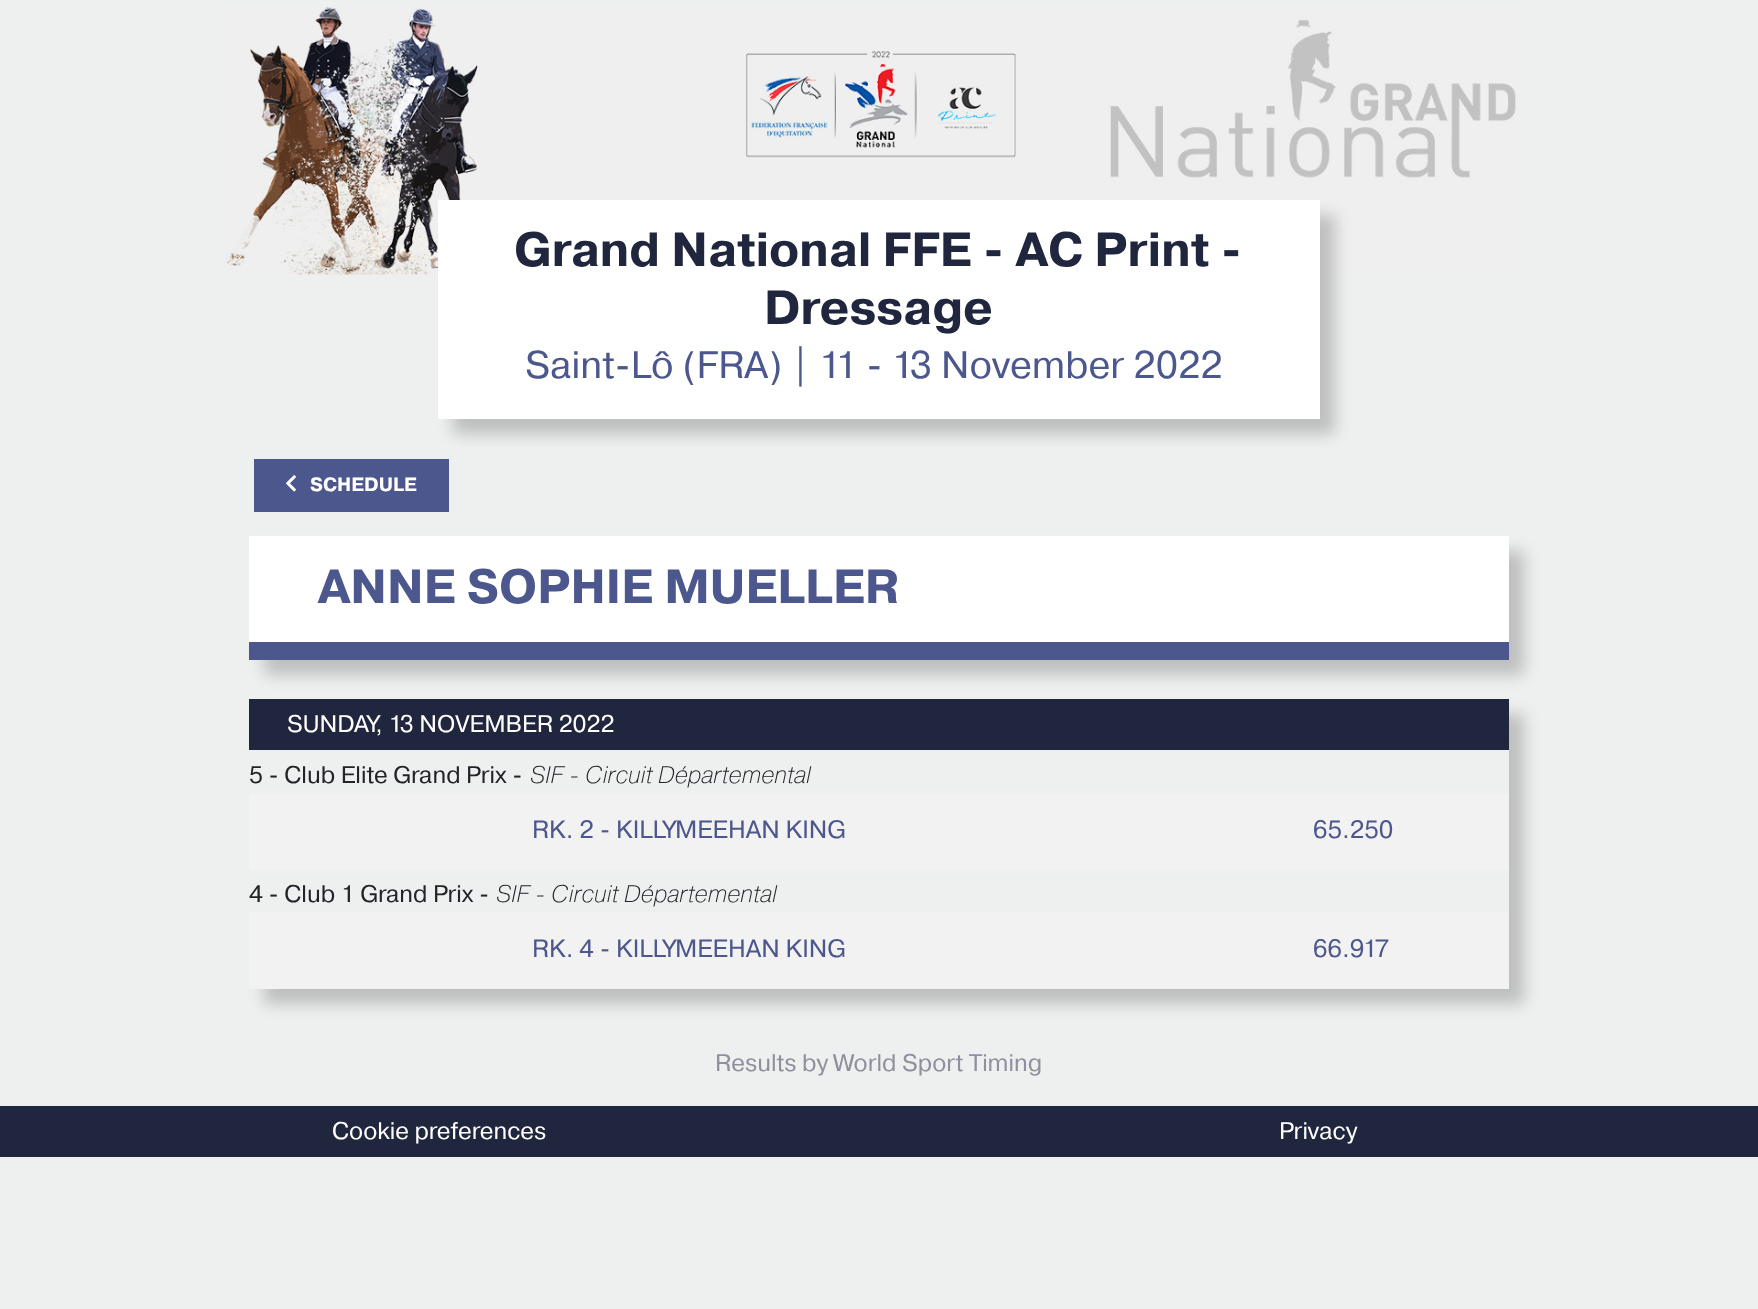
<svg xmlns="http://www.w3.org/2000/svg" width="1758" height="1309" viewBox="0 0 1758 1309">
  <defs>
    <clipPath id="clip1"><path d="M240 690H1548V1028H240ZM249 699H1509V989H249Z" clip-rule="evenodd"/></clipPath>
  </defs>
  <rect width="100%" height="100%" fill="rgb(238,239,239)"/>
  <image x="226" y="7" width="1290" height="268" href="pic1.png"/>
  <rect x="453" y="215" width="882" height="219" fill="rgba(0,0,0,0.2)" filter="blur(7.5px)"/>
  <rect x="438" y="200" width="882" height="219" fill="rgb(255,255,255)"/>
  <g font-family="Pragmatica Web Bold" font-size="48" font-weight="bold" fill="rgb(33,38,63)">
    <text x="514" y="266">Grand National FFE - AC Print -</text>
    <text x="764" y="324">Dressage</text>
  </g>
  <text x="525" y="378" font-family="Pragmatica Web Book" font-size="38.4" fill="rgb(76,87,141)">Saint-Lô (FRA) | 11 - 13 November 2022</text>
  <rect x="254" y="459" width="195" height="53" fill="rgb(76,87,141)"/>
  <image x="286" y="475" width="10" height="17" href="pic2.png"/>
  <text x="310" y="491" font-family="Pragmatica Web Bold" font-size="19.25" font-weight="bold" fill="rgb(255,255,255)">SCHEDULE</text>
  <rect x="264" y="551" width="1260" height="124" fill="rgba(0,0,0,0.2)" filter="blur(7.5px)"/>
  <rect x="249" y="536" width="1260" height="106" fill="rgb(255,255,255)"/>
  <text x="318" y="603" font-family="Pragmatica Web Bold" font-size="48" font-weight="bold" fill="rgb(76,87,141)">ANNE SOPHIE MUELLER</text>
  <rect x="249" y="642" width="1260" height="18" fill="rgb(76,87,141)"/>
  <g clip-path="url(#clip1)">
    <rect x="264" y="714" width="1260" height="290" fill="rgba(0,0,0,0.2)" filter="blur(7.5px)"/>
  </g>
  <rect x="249" y="699" width="1260" height="51" fill="rgb(33,38,63)"/>
  <text x="287" y="732" font-family="Pragmatica Web Book" font-size="24" fill="rgb(255,255,255)">SUNDAY, 13 NOVEMBER 2022</text>
  <text x="249" y="783" font-family="Pragmatica Web Book" font-size="24" fill="rgb(33,37,41)">5 - Club Elite Grand Prix -</text>
  <text x="530" y="783" font-family="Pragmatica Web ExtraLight" font-size="24" font-weight="200" font-style="italic" fill="rgb(33,37,41)">SIF - Circuit Départemental</text>
  <rect x="249" y="794" width="1260" height="76" fill="rgb(242,242,242)"/>
  <g font-family="Pragmatica Web Book" font-size="25" fill="rgb(76,87,141)">
    <text x="532" y="838">RK. 2 - KILLYMEEHAN KING</text>
    <text x="1313" y="838">65.250</text>
  </g>
  <text x="249" y="902" font-family="Pragmatica Web Book" font-size="24" fill="rgb(33,37,41)">4 - Club 1 Grand Prix -</text>
  <text x="496" y="902" font-family="Pragmatica Web ExtraLight" font-size="24" font-weight="200" font-style="italic" fill="rgb(33,37,41)">SIF - Circuit Départemental</text>
  <rect x="249" y="912" width="1260" height="77" fill="rgb(242,242,242)"/>
  <g font-family="Pragmatica Web Book" font-size="25" fill="rgb(76,87,141)">
    <text x="532" y="957">RK. 4 - KILLYMEEHAN KING</text>
    <text x="1313" y="957">66.917</text>
  </g>
  <text x="715" y="1071" font-family="Pragmatica Web Book" font-size="24" fill="rgb(142,145,157)">Results by World Sport Timing</text>
  <rect x="0" y="1106" width="1758" height="51" fill="rgb(33,38,63)"/>
  <g font-family="Pragmatica Web Book" font-size="24" fill="rgb(255,255,255)">
    <text x="332" y="1139">Cookie preferences</text>
    <text x="1279" y="1139">Privacy</text>
  </g>
</svg>
